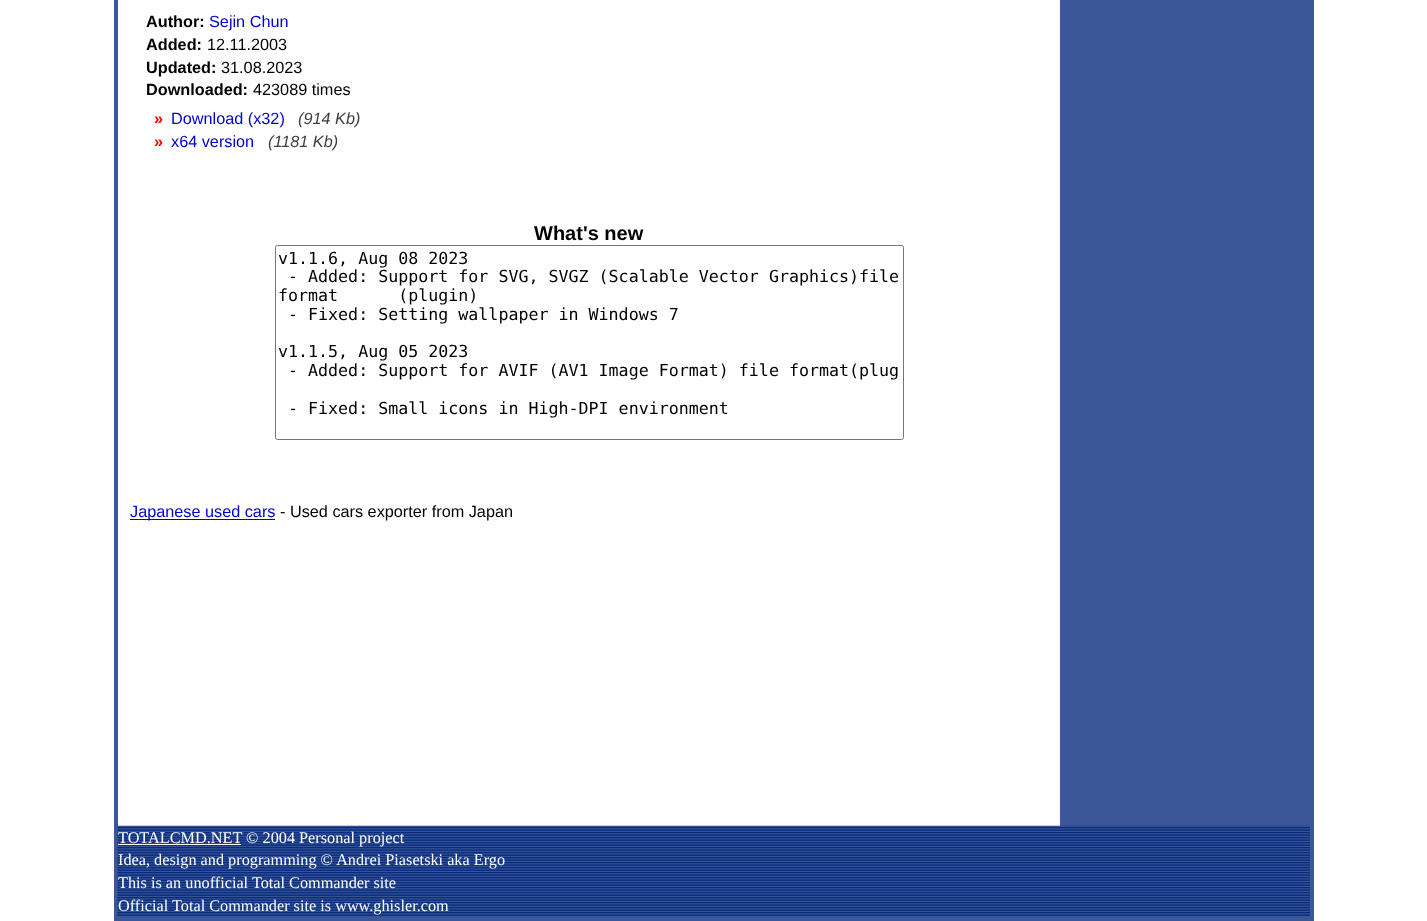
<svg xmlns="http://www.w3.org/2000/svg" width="1427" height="921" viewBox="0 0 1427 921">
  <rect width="100%" height="100%" fill="rgb(255,255,255)"/>
  <rect x="114" y="0" width="1200" height="921" fill="rgb(59,87,153)"/>
  <rect x="118" y="0" width="942" height="826" fill="rgb(255,255,255)"/>
  <text x="146" y="27" font-family="Liberation Sans" font-size="16.25" font-weight="bold" fill="rgb(0,0,0)">Author:</text>
  <text x="209" y="27" font-family="Liberation Sans" font-size="16.25" fill="rgb(0,0,204)">Sejin Chun</text>
  <text x="146" y="50" font-family="Liberation Sans" font-size="16.25" font-weight="bold" fill="rgb(0,0,0)">Added:</text>
  <text x="207" y="50" font-family="Liberation Sans" font-size="16.25" fill="rgb(0,0,0)">12.11.2003</text>
  <text x="146" y="73" font-family="Liberation Sans" font-size="16.25" font-weight="bold" fill="rgb(0,0,0)">Updated:</text>
  <text x="221" y="73" font-family="Liberation Sans" font-size="16.25" fill="rgb(0,0,0)">31.08.2023</text>
  <text x="146" y="95" font-family="Liberation Sans" font-size="16.25" font-weight="bold" fill="rgb(0,0,0)">Downloaded:</text>
  <text x="253" y="95" font-family="Liberation Sans" font-size="16.25" fill="rgb(0,0,0)">423089 times</text>
  <text x="154" y="124" font-family="Liberation Sans" font-size="16.25" font-weight="bold" fill="rgb(255,0,0)">»</text>
  <text x="171" y="124" font-family="Liberation Sans" font-size="16.25" fill="rgb(0,0,204)">Download (x32)</text>
  <text x="298" y="124" font-family="Liberation Sans" font-size="16.25" font-style="italic" fill="rgb(64,64,64)">(914 Kb)</text>
  <text x="154" y="147" font-family="Liberation Sans" font-size="16.25" font-weight="bold" fill="rgb(255,0,0)">»</text>
  <text x="171" y="147" font-family="Liberation Sans" font-size="16.25" fill="rgb(0,0,204)">x64 version</text>
  <text x="268" y="147" font-family="Liberation Sans" font-size="16.25" font-style="italic" fill="rgb(64,64,64)">(1181 Kb)</text>
  <text x="534" y="240" font-family="Liberation Sans" font-size="20" font-weight="bold" fill="rgb(0,0,0)">What's new</text>
  <rect x="275.5" y="245.5" width="628" height="194" rx="2" fill="none" stroke="rgb(118,118,118)"/>
  <g font-family="DejaVu Sans Mono" font-size="16.65" fill="rgb(0,0,0)">
    <text x="278" y="264">v1.1.6, Aug 08 2023</text>
    <text x="288" y="282">- Added: Support for SVG, SVGZ (Scalable Vector Graphics)file</text>
    <text x="278" y="301" word-spacing="50">format (plugin)</text>
    <text x="288" y="320">- Fixed: Setting wallpaper in Windows 7</text>
    <text x="278" y="357">v1.1.5, Aug 05 2023</text>
    <text x="288" y="376">- Added: Support for AVIF (AV1 Image Format) file format(plug</text>
    <text x="288" y="414">- Fixed: Small icons in High-DPI environment</text>
  </g>
  <rect x="130" y="519" width="145" height="1" fill="rgb(0,0,204)"/>
  <text x="130" y="517" font-family="Liberation Sans" font-size="16.25" fill="rgb(0,0,204)">Japanese used cars</text>
  <text x="280" y="517" font-family="Liberation Sans" font-size="16.25" fill="rgb(0,0,0)">- Used cars exporter from Japan</text>
  <image x="117" y="825" width="1193" height="91" href="pic1.png"/>
  <rect x="118" y="844" width="123" height="1" fill="rgb(255,255,255)"/>
  <g font-family="Liberation Serif" font-size="16.25" fill="rgb(255,255,255)">
    <text>
      <tspan x="118" y="843">TOTALCMD.NET © 2004 Personal project</tspan>
      <tspan x="118" y="865">Idea, design and programming © Andrei Piasetski aka Ergo</tspan>
      <tspan x="118" y="888">This is an unofficial Total Commander site</tspan>
      <tspan x="118" y="911">Official Total Commander site is www.ghisler.com</tspan>
    </text>
  </g>
</svg>
